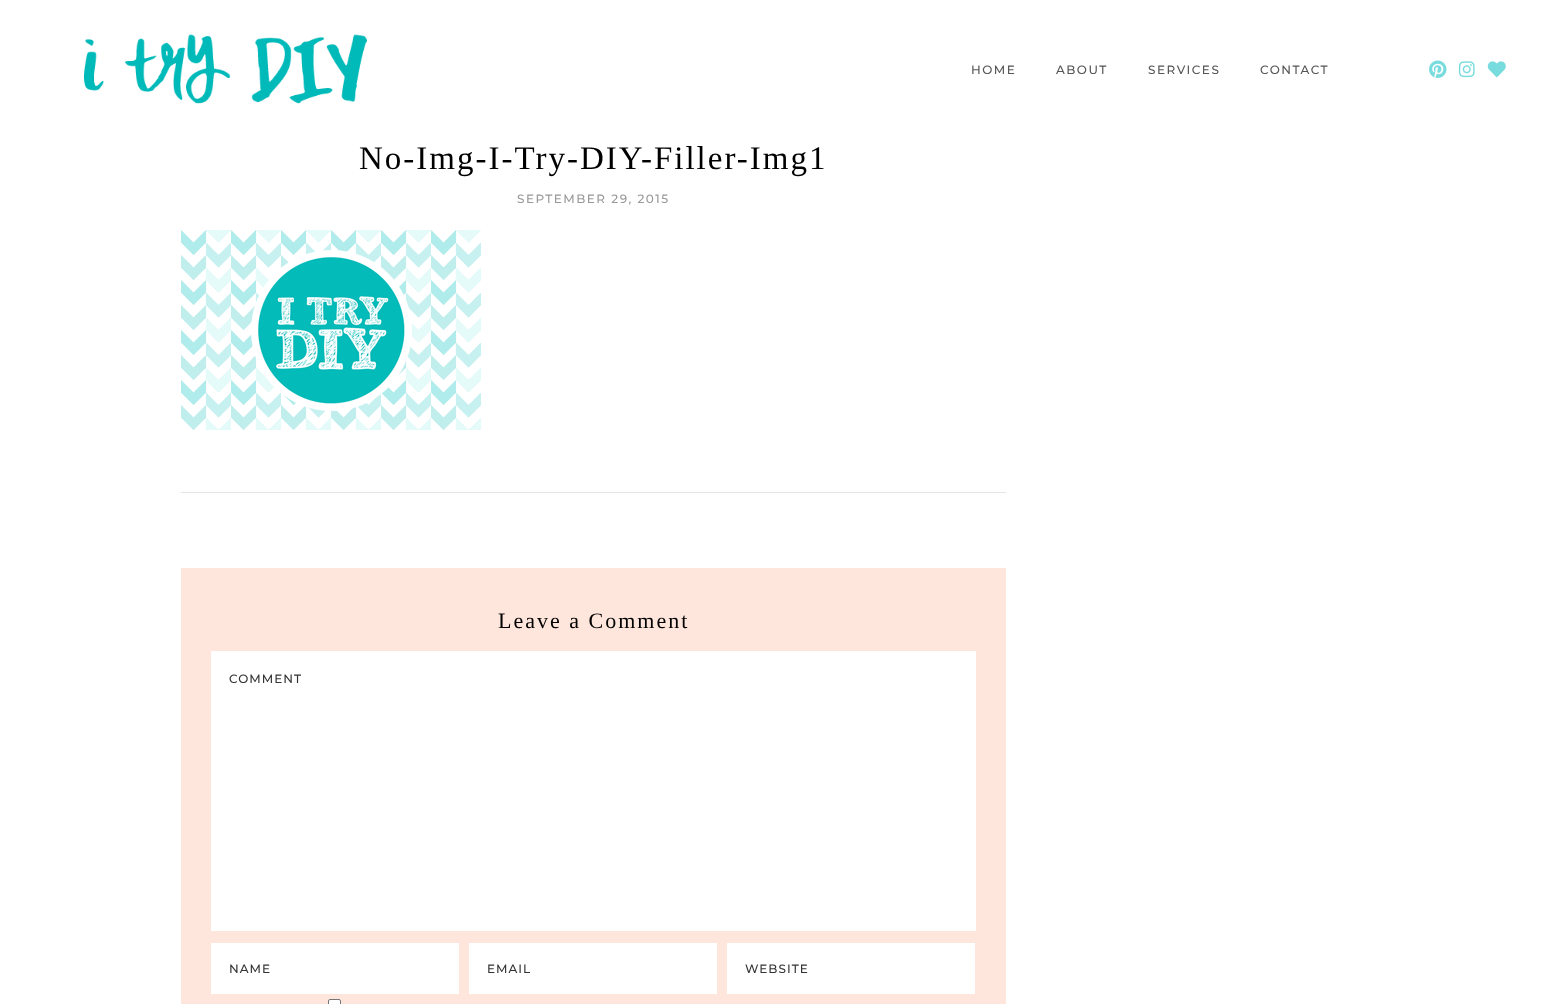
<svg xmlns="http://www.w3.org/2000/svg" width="1562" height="1004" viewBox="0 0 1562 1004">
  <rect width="100%" height="100%" fill="rgb(255,255,255)"/>
  <image x="84" y="34" width="283" height="70" href="pic1.png"/>
  <g font-family="Montserrat" font-size="12" font-weight="500" letter-spacing="1.5" fill="rgb(85,85,85)">
    <text x="971" y="74">HOME</text>
    <text x="1056" y="74">ABOUT</text>
    <text x="1148" y="74">SERVICES</text>
    <text x="1260" y="74">CONTACT</text>
  </g>
  <image x="1429" y="60" width="18" height="18" href="pic2.png"/>
  <image x="1458" y="61" width="17" height="17" href="pic3.png"/>
  <image x="1487" y="61" width="19" height="17" href="pic4.png"/>
  <text x="359" y="169" font-family="Liberation Serif" font-size="33" letter-spacing="2" fill="rgb(0,0,0)">No-Img-I-Try-DIY-Filler-Img1</text>
  <text x="517" y="203" font-family="Montserrat" font-size="12" font-weight="500" letter-spacing="1.5" fill="rgb(153,153,153)">SEPTEMBER 29, 2015</text>
  <rect x="181" y="492" width="825" height="1" fill="rgb(229,229,229)"/>
  <image x="181" y="230" width="300" height="200" href="pic5.png"/>
  <rect x="181" y="568" width="825" height="436" fill="rgb(255,230,220)"/>
  <text x="498" y="628" font-family="Liberation Serif" font-size="22" letter-spacing="2" fill="rgb(0,0,0)">Leave a Comment</text>
  <rect x="211" y="651" width="765" height="280" fill="rgb(255,255,255)"/>
  <text x="229" y="683" font-family="Montserrat" font-size="12" font-weight="500" letter-spacing="1" fill="rgb(51,51,51)">COMMENT</text>
  <rect x="211" y="943" width="248" height="51" fill="rgb(255,255,255)"/>
  <text x="229" y="973" font-family="Montserrat" font-size="12" font-weight="500" letter-spacing="1" fill="rgb(51,51,51)">NAME</text>
  <rect x="469" y="943" width="248" height="51" fill="rgb(255,255,255)"/>
  <text x="487" y="973" font-family="Montserrat" font-size="12" font-weight="500" letter-spacing="1" fill="rgb(51,51,51)">EMAIL</text>
  <rect x="727" y="943" width="248" height="51" fill="rgb(255,255,255)"/>
  <text x="745" y="973" font-family="Montserrat" font-size="12" font-weight="500" letter-spacing="1" fill="rgb(51,51,51)">WEBSITE</text>
  <rect x="328.5" y="999.5" width="12" height="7" rx="1.5" fill="rgb(255,255,255)" stroke="rgb(118,118,118)"/>
</svg>
